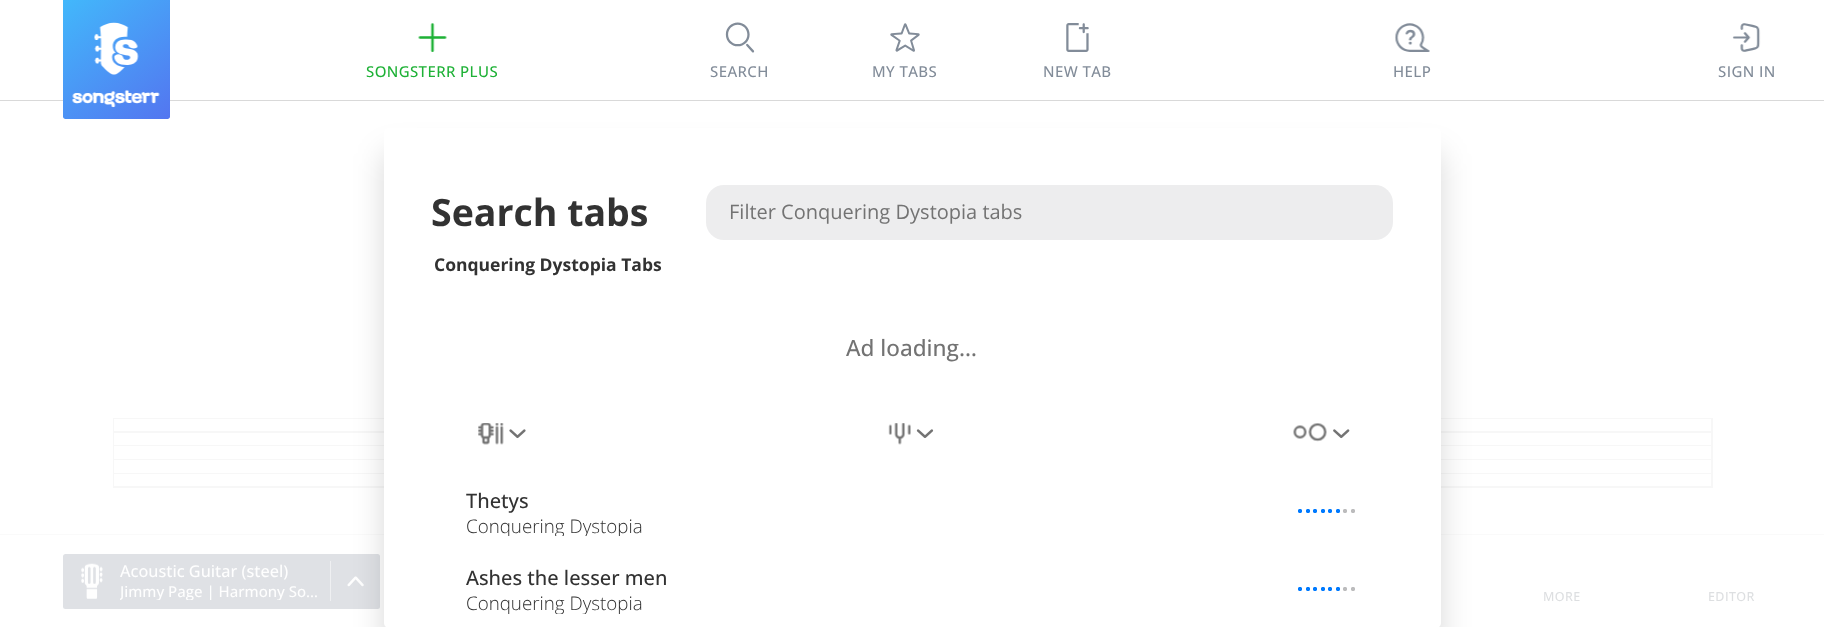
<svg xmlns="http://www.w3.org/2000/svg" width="1824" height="627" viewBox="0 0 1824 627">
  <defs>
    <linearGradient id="g1" gradientUnits="userSpaceOnUse" x1="66" y1="-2.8" x2="167" y2="122"><stop offset="0" stop-color="rgb(66,184,251)"/><stop offset="0.99" stop-color="rgb(83,118,240)"/></linearGradient>
    <clipPath id="clip1"><rect x="466" y="514" width="819" height="22"/></clipPath>
    <radialGradient id="g2" gradientUnits="userSpaceOnUse" cx="1353" cy="511" r="2.5"><stop offset="0.7" stop-color="rgb(188,188,189)"/><stop offset="1" stop-color="rgb(255,255,255)"/></radialGradient>
    <radialGradient id="g3" gradientUnits="userSpaceOnUse" cx="1345" cy="511" r="2.5"><stop offset="0.7" stop-color="rgb(188,188,189)"/><stop offset="1" stop-color="rgb(255,255,255)"/></radialGradient>
    <radialGradient id="g4" gradientUnits="userSpaceOnUse" cx="1338" cy="511" r="2.5"><stop offset="0.7" stop-color="rgb(0,122,255)"/><stop offset="1" stop-color="rgb(255,255,255)"/></radialGradient>
    <radialGradient id="g5" gradientUnits="userSpaceOnUse" cx="1330" cy="511" r="2.5"><stop offset="0.7" stop-color="rgb(0,122,255)"/><stop offset="1" stop-color="rgb(255,255,255)"/></radialGradient>
    <radialGradient id="g6" gradientUnits="userSpaceOnUse" cx="1323" cy="511" r="2.5"><stop offset="0.7" stop-color="rgb(0,122,255)"/><stop offset="1" stop-color="rgb(255,255,255)"/></radialGradient>
    <radialGradient id="g7" gradientUnits="userSpaceOnUse" cx="1315" cy="511" r="2.5"><stop offset="0.7" stop-color="rgb(0,122,255)"/><stop offset="1" stop-color="rgb(255,255,255)"/></radialGradient>
    <radialGradient id="g8" gradientUnits="userSpaceOnUse" cx="1308" cy="511" r="2.5"><stop offset="0.7" stop-color="rgb(0,122,255)"/><stop offset="1" stop-color="rgb(255,255,255)"/></radialGradient>
    <radialGradient id="g9" gradientUnits="userSpaceOnUse" cx="1300" cy="511" r="2.5"><stop offset="0.7" stop-color="rgb(0,122,255)"/><stop offset="1" stop-color="rgb(255,255,255)"/></radialGradient>
    <clipPath id="clip2"><rect x="466" y="591" width="819" height="23"/></clipPath>
    <radialGradient id="g10" gradientUnits="userSpaceOnUse" cx="1353" cy="589" r="2.5"><stop offset="0.7" stop-color="rgb(188,188,189)"/><stop offset="1" stop-color="rgb(255,255,255)"/></radialGradient>
    <radialGradient id="g11" gradientUnits="userSpaceOnUse" cx="1345" cy="589" r="2.5"><stop offset="0.7" stop-color="rgb(188,188,189)"/><stop offset="1" stop-color="rgb(255,255,255)"/></radialGradient>
    <radialGradient id="g12" gradientUnits="userSpaceOnUse" cx="1338" cy="589" r="2.5"><stop offset="0.7" stop-color="rgb(0,122,255)"/><stop offset="1" stop-color="rgb(255,255,255)"/></radialGradient>
    <radialGradient id="g13" gradientUnits="userSpaceOnUse" cx="1330" cy="589" r="2.5"><stop offset="0.7" stop-color="rgb(0,122,255)"/><stop offset="1" stop-color="rgb(255,255,255)"/></radialGradient>
    <radialGradient id="g14" gradientUnits="userSpaceOnUse" cx="1323" cy="589" r="2.5"><stop offset="0.7" stop-color="rgb(0,122,255)"/><stop offset="1" stop-color="rgb(255,255,255)"/></radialGradient>
    <radialGradient id="g15" gradientUnits="userSpaceOnUse" cx="1315" cy="589" r="2.5"><stop offset="0.7" stop-color="rgb(0,122,255)"/><stop offset="1" stop-color="rgb(255,255,255)"/></radialGradient>
    <radialGradient id="g16" gradientUnits="userSpaceOnUse" cx="1308" cy="589" r="2.5"><stop offset="0.7" stop-color="rgb(0,122,255)"/><stop offset="1" stop-color="rgb(255,255,255)"/></radialGradient>
    <radialGradient id="g17" gradientUnits="userSpaceOnUse" cx="1300" cy="589" r="2.5"><stop offset="0.7" stop-color="rgb(0,122,255)"/><stop offset="1" stop-color="rgb(255,255,255)"/></radialGradient>
    <clipPath id="clip3"><rect x="120" y="581" width="203" height="19"/></clipPath>
  </defs>
  <rect width="100%" height="100%" fill="rgb(255,255,255)"/>
  <rect x="0" y="100" width="1824" height="1" fill="rgb(217,217,217)"/>
  <path d="M63 0H170V116.5C170 118 169 119 167.5 119H65.5C64 119 63 118 63 116.5Z" fill="url(#g1)"/>
  <image x="94" y="22" width="45" height="53" href="pic1.png"/>
  <image x="72" y="90" width="88" height="18" href="pic2.png"/>
  <image x="418" y="23" width="29" height="29" href="pic3.png"/>
  <text x="366" y="77" font-family="Open Sans" font-size="15" font-weight="500" letter-spacing="0.4" fill="rgb(30,177,54)">SONGSTERR PLUS</text>
  <image x="725" y="22" width="30" height="31" href="pic4.png"/>
  <text x="710" y="77" font-family="Open Sans" font-size="15" font-weight="500" letter-spacing="0.4" fill="rgb(130,140,153)">SEARCH</text>
  <image x="890" y="23" width="30" height="29" href="pic5.png"/>
  <text x="872" y="77" font-family="Open Sans" font-size="15" font-weight="500" letter-spacing="0.4" fill="rgb(130,140,153)">MY TABS</text>
  <image x="1066" y="23" width="23" height="29" href="pic6.png"/>
  <text x="1043" y="77" font-family="Open Sans" font-size="15" font-weight="500" letter-spacing="0.4" fill="rgb(130,140,153)">NEW TAB</text>
  <image x="1395" y="23" width="35" height="29" href="pic7.png"/>
  <text x="1393" y="77" font-family="Open Sans" font-size="15" font-weight="500" letter-spacing="0.4" fill="rgb(130,140,153)">HELP</text>
  <image x="1732" y="23" width="29" height="29" href="pic8.png"/>
  <text x="1718" y="77" font-family="Open Sans" font-size="15" font-weight="500" letter-spacing="0.4" fill="rgb(130,140,153)">SIGN IN</text>
  <rect x="113" y="418" width="1600" height="70" fill="rgb(247,247,247)"/>
  <rect x="114" y="419" width="1597" height="12" fill="rgb(255,255,255)"/>
  <rect x="114" y="433" width="1597" height="12" fill="rgb(255,255,255)"/>
  <rect x="114" y="446" width="1597" height="13" fill="rgb(255,255,255)"/>
  <rect x="114" y="460" width="1597" height="13" fill="rgb(255,255,255)"/>
  <rect x="114" y="474" width="1597" height="12" fill="rgb(255,255,255)"/>
  <rect x="0" y="534" width="1824" height="1" fill="rgb(250,250,250)"/>
  <rect x="63" y="554" width="317" height="55" rx="2.5" fill="rgb(223,225,229)"/>
  <image x="347" y="576" width="17" height="11" href="pic16.png"/>
  <rect x="384" y="153" width="1057" height="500" rx="5" fill="rgba(0,0,0,0.15)" filter="blur(15.5px)"/>
  <rect x="384" y="128" width="1057" height="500" rx="5" fill="rgb(255,255,255)"/>
  <text x="431" y="226" font-family="Open Sans" font-size="37.5" font-weight="bold" fill="rgb(50,50,50)">Search tabs</text>
  <rect x="706" y="185" width="687" height="55" rx="18" fill="rgb(237,237,238)"/>
  <text x="729" y="219" font-family="Open Sans" font-size="20" fill="rgb(115,115,115)">Filter Conquering Dystopia tabs</text>
  <text x="434" y="271" font-family="Open Sans" font-size="17.5" font-weight="bold" fill="rgb(50,50,50)">Conquering Dystopia Tabs</text>
  <text x="846" y="356" font-family="Open Sans" font-size="22.5" font-weight="500" fill="rgb(115,115,115)">Ad loading…</text>
  <image x="478" y="423" width="26" height="22" href="pic9.png"/>
  <image x="509" y="429" width="17" height="10" href="pic10.png"/>
  <image x="888" y="423" width="23" height="22" href="pic11.png"/>
  <image x="916" y="429" width="18" height="9" href="pic12.png"/>
  <image x="1293" y="423" width="34" height="19" href="pic13.png"/>
  <image x="1333" y="429" width="17" height="10" href="pic14.png"/>
  <text x="466" y="508" font-family="Open Sans" font-size="20" font-weight="500" fill="rgb(50,50,50)">Thetys</text>
  <g clip-path="url(#clip1)">
    <text x="466" y="533" font-family="Open Sans" font-size="18.75" font-weight="300" fill="rgb(50,50,50)">Conquering Dystopia</text>
  </g>
  <rect x="1350" y="509" width="5" height="4" fill="url(#g2)"/>
  <rect x="1343" y="509" width="5" height="4" fill="url(#g3)"/>
  <rect x="1335" y="509" width="5" height="4" fill="url(#g4)"/>
  <rect x="1328" y="509" width="5" height="4" fill="url(#g5)"/>
  <rect x="1320" y="509" width="5" height="4" fill="url(#g6)"/>
  <rect x="1313" y="509" width="5" height="4" fill="url(#g7)"/>
  <rect x="1305" y="509" width="5" height="4" fill="url(#g8)"/>
  <rect x="1298" y="509" width="5" height="4" fill="url(#g9)"/>
  <text x="466" y="585" font-family="Open Sans" font-size="20" font-weight="500" fill="rgb(50,50,50)">Ashes the lesser men</text>
  <g clip-path="url(#clip2)">
    <text x="466" y="610" font-family="Open Sans" font-size="18.75" font-weight="300" fill="rgb(50,50,50)">Conquering Dystopia</text>
  </g>
  <rect x="1350" y="587" width="5" height="4" fill="url(#g10)"/>
  <rect x="1343" y="587" width="5" height="4" fill="url(#g11)"/>
  <rect x="1335" y="587" width="5" height="4" fill="url(#g12)"/>
  <rect x="1328" y="587" width="5" height="4" fill="url(#g13)"/>
  <rect x="1320" y="587" width="5" height="4" fill="url(#g14)"/>
  <rect x="1313" y="587" width="5" height="4" fill="url(#g15)"/>
  <rect x="1305" y="587" width="5" height="4" fill="url(#g16)"/>
  <rect x="1298" y="587" width="5" height="4" fill="url(#g17)"/>
  <image x="81" y="563" width="22" height="36" href="pic15.png"/>
  <text x="120" y="577" font-family="Open Sans" font-size="16.25" font-weight="500" fill="rgb(254,254,254)">Acoustic Guitar (steel)</text>
  <g clip-path="url(#clip3)">
    <text x="120" y="597" font-family="Open Sans" font-size="15" font-weight="500" fill="rgb(254,254,254)">Jimmy Page | Harmony So…</text>
  </g>
  <rect x="330" y="561" width="1" height="40" fill="rgb(239,240,242)"/>
  <g font-family="Open Sans" font-size="12.5" font-weight="500" letter-spacing="0.4" fill="rgb(221,223,225)">
    <text x="1543" y="601">MORE</text>
    <text x="1708" y="601">EDITOR</text>
  </g>
</svg>
